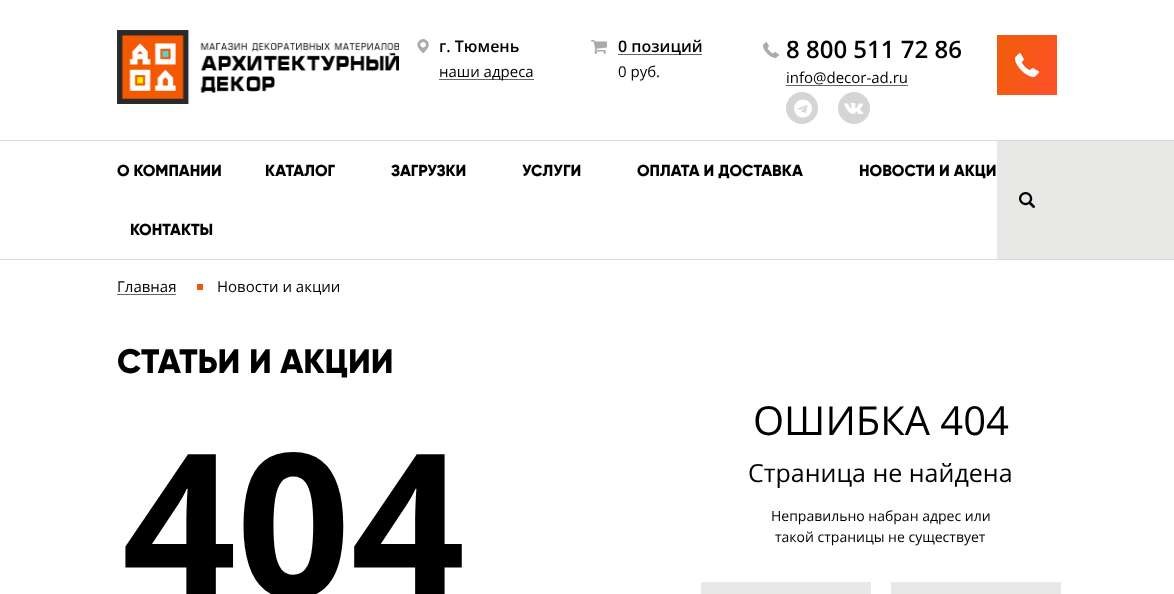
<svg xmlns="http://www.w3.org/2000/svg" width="1174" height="594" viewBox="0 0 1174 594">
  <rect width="100%" height="100%" fill="rgb(255,255,255)"/>
  <image x="117" y="30" width="282" height="74" href="pic1.png"/>
  <image x="417" y="39" width="12" height="14" href="pic2.png"/>
  <text x="439" y="52" font-family="Open Sans" font-size="16" font-weight="600" fill="rgb(0,0,0)">г. Тюмень</text>
  <text x="439" y="77" font-family="Open Sans" font-size="15" fill="rgb(0,0,0)">наши адреса</text>
  <rect x="439" y="79" width="95" height="1" fill="rgba(0,0,0,0.6)"/>
  <image x="591" y="40" width="16" height="14" href="pic3.png"/>
  <text x="618" y="52" font-family="Open Sans" font-size="16" font-weight="600" fill="rgb(0,0,0)">0 позиций</text>
  <rect x="618" y="54" width="84" height="1" fill="rgba(0,0,0,0.6)"/>
  <text x="618" y="77" font-family="Open Sans" font-size="15" fill="rgb(0,0,0)">0 руб.</text>
  <image x="763" y="42" width="16" height="16" href="pic4.png"/>
  <text x="786" y="58" font-family="Open Sans" font-size="24" font-weight="600" fill="rgb(0,0,0)">8 800 511 72 86</text>
  <text x="786" y="83" font-family="Open Sans" font-size="15" fill="rgb(0,0,0)">info@decor-ad.ru</text>
  <rect x="786" y="85" width="122" height="1" fill="rgb(102,102,102)"/>
  <circle cx="802" cy="108" r="16" fill="rgb(214,212,212)"/>
  <image x="794" y="99" width="18" height="19" href="pic5.png"/>
  <circle cx="854" cy="108" r="16" fill="rgb(214,212,212)"/>
  <image x="844" y="103" width="20" height="11" href="pic6.png"/>
  <image x="997" y="35" width="60" height="60" href="pic7.png"/>
  <rect x="997" y="141" width="177" height="118" fill="rgb(232,232,231)"/>
  <rect x="0" y="140" width="1174" height="1" fill="rgb(219,219,219)"/>
  <rect x="0" y="259" width="1174" height="1" fill="rgb(219,219,219)"/>
  <g font-family="Gilroy" font-size="16" font-weight="800" fill="rgb(0,0,0)">
    <text x="117" y="176">О КОМПАНИИ</text>
    <text x="265" y="176">КАТАЛОГ</text>
    <text x="391" y="176">ЗАГРУЗКИ</text>
    <text x="522" y="176">УСЛУГИ</text>
    <text x="637" y="176">ОПЛАТА И ДОСТАВКА</text>
    <text x="859" y="176">НОВОСТИ И АКЦИ</text>
    <text x="130" y="235">КОНТАКТЫ</text>
  </g>
  <image x="1019" y="192" width="16" height="16" href="pic8.png"/>
  <text x="117" y="292" font-family="Open Sans" font-size="15" fill="rgb(0,0,0)">Главная</text>
  <rect x="117" y="294" width="59" height="1" fill="rgb(102,102,102)"/>
  <rect x="197" y="284" width="6" height="6" fill="rgb(240,88,13)"/>
  <text x="217" y="292" font-family="Open Sans" font-size="15" fill="rgb(0,0,0)">Новости и акции</text>
  <text x="117" y="373" font-family="Gilroy" font-size="34" font-weight="800" fill="rgb(0,0,0)">СТАТЬИ И АКЦИИ</text>
  <text x="122" y="597" font-family="Open Sans" font-size="200" font-weight="bold" fill="rgb(0,0,0)">404</text>
  <text x="753" y="435" font-family="Open Sans" font-size="40" fill="rgb(0,0,0)">ОШИБКА 404</text>
  <text x="748" y="482" font-family="Open Sans" font-size="25" fill="rgb(0,0,0)">Страница не найдена</text>
  <g font-family="Open Sans" font-size="14" fill="rgb(0,0,0)">
    <text x="771" y="521">Неправильно набран адрес или</text>
    <text x="775" y="542">такой страницы не существует</text>
  </g>
  <rect x="701" y="582" width="170" height="12" fill="rgb(232,232,231)"/>
  <rect x="891" y="582" width="170" height="12" fill="rgb(232,232,231)"/>
</svg>
